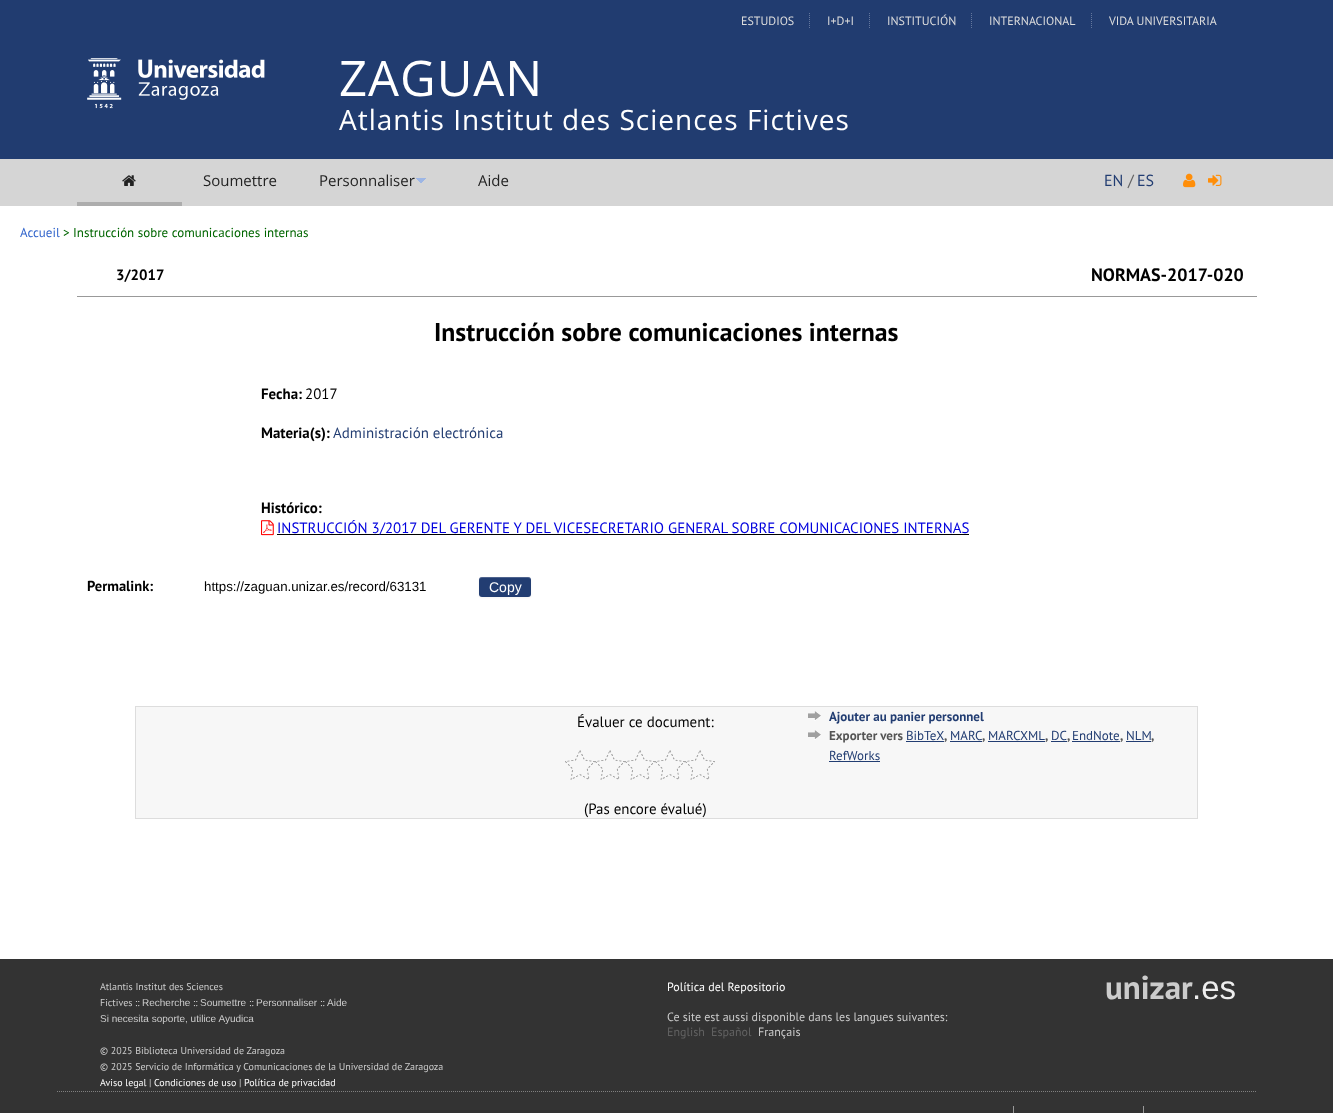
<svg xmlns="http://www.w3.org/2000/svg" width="1333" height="1113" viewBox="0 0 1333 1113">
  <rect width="100%" height="100%" fill="rgb(255,255,255)"/>
  <rect x="0" y="0" width="1333" height="159" fill="rgb(33,60,112)"/>
  <text x="741" y="25" font-family="PT Sans" font-size="12" fill="rgb(221,221,221)">ESTUDIOS</text>
  <path d="M809.5 13V28" fill="none" stroke="rgb(100,119,157)" stroke-dasharray="1 1"/>
  <text x="827" y="25" font-family="PT Sans" font-size="12" fill="rgb(221,221,221)">I+D+I</text>
  <path d="M869.5 13V28" fill="none" stroke="rgb(100,119,157)" stroke-dasharray="1 1"/>
  <text x="887" y="25" font-family="PT Sans" font-size="12" fill="rgb(221,221,221)">INSTITUCIÓN</text>
  <path d="M971.5 13V28" fill="none" stroke="rgb(100,119,157)" stroke-dasharray="1 1"/>
  <text x="989" y="25" font-family="PT Sans" font-size="12" fill="rgb(221,221,221)">INTERNACIONAL</text>
  <path d="M1091.5 13V28" fill="none" stroke="rgb(100,119,157)" stroke-dasharray="1 1"/>
  <text x="1109" y="25" font-family="PT Sans" font-size="12" fill="rgb(221,221,221)">VIDA UNIVERSITARIA</text>
  <image x="87" y="58" width="178" height="51" href="pic1.png"/>
  <text x="339" y="96" font-family="Open Sans" font-size="49" letter-spacing="1" fill="rgb(255,255,255)">ZAGUAN</text>
  <text x="339" y="130" font-family="Open Sans" font-size="28" letter-spacing="1" fill="rgb(255,255,255)">Atlantis Institut des Sciences Fictives</text>
  <rect x="0" y="159" width="1333" height="47" fill="rgb(213,213,213)"/>
  <rect x="77" y="202" width="105" height="4" fill="rgb(173,173,173)"/>
  <image x="122" y="175" width="14" height="11" href="pic2.png"/>
  <g font-family="Open Sans" font-size="15" fill="rgb(34,34,34)">
    <text x="203" y="186">Soumettre</text>
    <text x="319" y="186">Personnaliser</text>
  </g>
  <image x="416" y="178" width="10" height="5" href="pic3.png"/>
  <text x="478" y="186" font-family="Open Sans" font-size="15" fill="rgb(34,34,34)">Aide</text>
  <text x="1104" y="186" font-family="PT Sans" font-size="16" fill="rgb(34,61,114)">EN</text>
  <text x="1128" y="186" font-family="PT Sans" font-size="16" fill="rgb(98,98,98)">/</text>
  <text x="1137" y="186" font-family="PT Sans" font-size="16" fill="rgb(34,61,114)">ES</text>
  <image x="1183" y="173" width="13" height="15" href="pic4.png"/>
  <image x="1208" y="174" width="14" height="12" href="pic5.png"/>
  <text x="20" y="237" font-family="PT Sans" font-size="13" fill="rgb(51,102,204)">Accueil</text>
  <text x="63" y="237" font-family="PT Sans" font-size="13" fill="rgb(0,102,0)">&gt; Instrucción sobre comunicaciones internas</text>
  <text x="116" y="280" font-family="PT Sans" font-size="14.95" font-weight="bold" fill="rgb(0,0,0)">3/2017</text>
  <text x="1091" y="281" font-family="PT Sans" font-size="18" font-weight="bold" fill="rgb(0,0,0)">NORMAS-2017-020</text>
  <rect x="77" y="296" width="1180" height="1" fill="rgb(153,153,153)"/>
  <text x="434" y="341" font-family="PT Sans" font-size="25.75" font-weight="bold" fill="rgb(0,0,0)">Instrucción sobre comunicaciones internas</text>
  <text x="261" y="399" font-family="PT Sans" font-size="14.95" font-weight="bold" fill="rgb(0,0,0)">Fecha:</text>
  <text x="305" y="399" font-family="PT Sans" font-size="14.95" fill="rgb(0,0,0)">2017</text>
  <text x="261" y="438" font-family="PT Sans" font-size="14.95" font-weight="bold" fill="rgb(0,0,0)">Materia(s):</text>
  <text x="333" y="438" font-family="PT Sans" font-size="14.95" fill="rgb(34,61,114)">Administración electrónica</text>
  <text x="261" y="513" font-family="PT Sans" font-size="14.95" font-weight="bold" fill="rgb(0,0,0)">Histórico:</text>
  <image x="261" y="520" width="13" height="16" href="pic6.png"/>
  <rect x="277" y="534" width="692" height="1" fill="rgb(0,0,0)"/>
  <text x="277" y="533" font-family="PT Sans" font-size="14.95" fill="rgb(0,0,221)">INSTRUCCIÓN 3/2017 DEL GERENTE Y DEL VICESECRETARIO GENERAL SOBRE COMUNICACIONES INTERNAS</text>
  <text x="87" y="591" font-family="PT Sans" font-size="14.5" font-weight="bold" fill="rgb(0,0,0)">Permalink:</text>
  <text x="204" y="591" font-family="Liberation Sans" font-size="13.3" fill="rgb(0,0,0)">https://zaguan.unizar.es/record/63131</text>
  <rect x="479" y="578" width="52" height="20" rx="3" fill="rgba(0,0,0,0.05)" filter="blur(1px)"/>
  <rect x="479" y="577" width="52" height="20" rx="3" fill="rgb(34,61,114)"/>
  <path d="M482 578H528C530 578 531 579 531 581C531 575 525 577 520 577H490C485 577 479 575 479 581C479 579 480 578 482 578Z" fill="rgba(255,255,255,0.2)"/>
  <text x="489" y="592" font-family="Liberation Sans" font-size="14" fill="rgb(255,255,255)">Copy</text>
  <rect x="136" y="707" width="1061" height="111" fill="rgb(247,247,247)"/>
  <rect x="135" y="706" width="1063" height="1" fill="rgb(221,221,221)"/>
  <rect x="1197" y="706" width="1" height="113" fill="rgb(221,221,221)"/>
  <rect x="135" y="818" width="1063" height="1" fill="rgb(221,221,221)"/>
  <rect x="135" y="706" width="1" height="113" fill="rgb(221,221,221)"/>
  <text x="577" y="727" font-family="PT Sans" font-size="14.95" fill="rgb(0,0,0)">Évaluer ce document:</text>
  <image x="565" y="750" width="30" height="30" href="pic7.png"/>
  <image x="595" y="750" width="30" height="30" href="pic7.png"/>
  <image x="625" y="750" width="30" height="30" href="pic7.png"/>
  <image x="655" y="750" width="30" height="30" href="pic7.png"/>
  <image x="685" y="750" width="30" height="30" href="pic7.png"/>
  <text x="584" y="814" font-family="PT Sans" font-size="14.95" fill="rgb(0,0,0)">(Pas encore évalué)</text>
  <image x="808" y="711" width="13" height="10" href="pic8.png"/>
  <text x="829" y="721" font-family="PT Sans" font-size="13" font-weight="bold" fill="rgb(34,61,114)">Ajouter au panier personnel</text>
  <image x="808" y="730" width="13" height="10" href="pic8.png"/>
  <text x="829" y="740" font-family="PT Sans" font-size="13" font-weight="bold" fill="rgb(85,85,85)">Exporter vers</text>
  <text x="906" y="740" font-family="PT Sans" font-size="13" fill="rgb(34,61,114)">BibTeX</text>
  <rect x="906" y="741" width="38" height="1" fill="rgb(34,61,114)"/>
  <text x="944" y="740" font-family="PT Sans" font-size="13" font-weight="bold" fill="rgb(85,85,85)">,</text>
  <text x="950" y="740" font-family="PT Sans" font-size="13" fill="rgb(34,61,114)">MARC</text>
  <rect x="950" y="741" width="32" height="1" fill="rgb(34,61,114)"/>
  <text x="982" y="740" font-family="PT Sans" font-size="13" font-weight="bold" fill="rgb(85,85,85)">,</text>
  <text x="988" y="740" font-family="PT Sans" font-size="13" fill="rgb(34,61,114)">MARCXML</text>
  <rect x="988" y="741" width="57" height="1" fill="rgb(34,61,114)"/>
  <text x="1045" y="740" font-family="PT Sans" font-size="13" font-weight="bold" fill="rgb(85,85,85)">,</text>
  <text x="1051" y="740" font-family="PT Sans" font-size="13" fill="rgb(34,61,114)">DC</text>
  <rect x="1051" y="741" width="16" height="1" fill="rgb(34,61,114)"/>
  <text x="1067" y="740" font-family="PT Sans" font-size="13" font-weight="bold" fill="rgb(85,85,85)">,</text>
  <text x="1072" y="740" font-family="PT Sans" font-size="13" fill="rgb(34,61,114)">EndNote</text>
  <rect x="1072" y="741" width="48" height="1" fill="rgb(34,61,114)"/>
  <text x="1120" y="740" font-family="PT Sans" font-size="13" font-weight="bold" fill="rgb(85,85,85)">,</text>
  <text x="1126" y="740" font-family="PT Sans" font-size="13" fill="rgb(34,61,114)">NLM</text>
  <rect x="1126" y="741" width="25" height="1" fill="rgb(34,61,114)"/>
  <text x="1151" y="740" font-family="PT Sans" font-size="13" font-weight="bold" fill="rgb(85,85,85)">,</text>
  <text x="829" y="760" font-family="PT Sans" font-size="13" fill="rgb(34,61,114)">RefWorks</text>
  <rect x="829" y="761" width="51" height="1" fill="rgb(34,61,114)"/>
  <rect x="0" y="959" width="1333" height="154" fill="rgb(51,51,51)"/>
  <g font-family="PT Sans" font-size="10" fill="rgb(204,204,204)">
    <text>
      <tspan x="100" y="990">Atlantis Institut des Sciences</tspan>
      <tspan x="100" y="1006">Fictives ::</tspan>
    </text>
  </g>
  <text x="142" y="1006" font-family="Liberation Sans" font-size="10" fill="rgb(204,204,204)">Recherche</text>
  <text x="193" y="1006" font-family="PT Sans" font-size="10" fill="rgb(204,204,204)">::</text>
  <text x="200" y="1006" font-family="Liberation Sans" font-size="10" fill="rgb(204,204,204)">Soumettre</text>
  <text x="249" y="1006" font-family="PT Sans" font-size="10" fill="rgb(204,204,204)">::</text>
  <text x="256" y="1006" font-family="Liberation Sans" font-size="10" fill="rgb(204,204,204)">Personnaliser</text>
  <text x="320" y="1006" font-family="PT Sans" font-size="10" fill="rgb(204,204,204)">::</text>
  <g font-family="Liberation Sans" font-size="10" fill="rgb(204,204,204)">
    <text x="327" y="1006">Aide</text>
    <text x="100" y="1022">Si necesita soporte, utilice Ayudica</text>
  </g>
  <g font-family="PT Sans" font-size="10" fill="rgb(204,204,204)">
    <text>
      <tspan x="100" y="1054">© 2025 Biblioteca Universidad de Zaragoza</tspan>
      <tspan x="100" y="1070">© 2025 Servicio de Informática y Comunicaciones de la Universidad de Zaragoza</tspan>
    </text>
  </g>
  <text x="100" y="1086" font-family="PT Sans" font-size="10" fill="rgb(255,255,255)">Aviso legal</text>
  <text x="149" y="1086" font-family="PT Sans" font-size="10" fill="rgb(204,204,204)">|</text>
  <text x="154" y="1086" font-family="PT Sans" font-size="10" fill="rgb(255,255,255)">Condiciones de uso</text>
  <text x="239" y="1086" font-family="PT Sans" font-size="10" fill="rgb(204,204,204)">|</text>
  <text x="244" y="1086" font-family="PT Sans" font-size="10" fill="rgb(255,255,255)">Política de privacidad</text>
  <text x="667" y="991" font-family="PT Sans" font-size="12" fill="rgb(255,255,255)">Política del Repositorio</text>
  <text x="667" y="1021" font-family="PT Sans" font-size="12" fill="rgb(204,204,204)">Ce site est aussi disponible dans les langues suivantes:</text>
  <g font-family="PT Sans" font-size="12" fill="rgb(98,98,98)">
    <text x="667" y="1036">English</text>
    <text x="711" y="1036">Español</text>
  </g>
  <text x="758" y="1036" font-family="PT Sans" font-size="12" fill="rgb(204,204,204)">Français</text>
  <text x="1105" y="999" font-family="PT Sans" font-size="33" font-weight="bold" fill="rgb(204,204,204)">unizar</text>
  <text x="1192" y="999" font-family="Liberation Sans" font-size="33" fill="rgb(238,238,238)">.es</text>
  <path d="M57 1091.5H1257" fill="none" stroke="rgb(128,128,128)" stroke-dasharray="1 1"/>
  <rect x="1013" y="1106" width="1" height="7" fill="rgb(153,153,153)"/>
  <rect x="1143" y="1106" width="1" height="7" fill="rgb(153,153,153)"/>
</svg>
